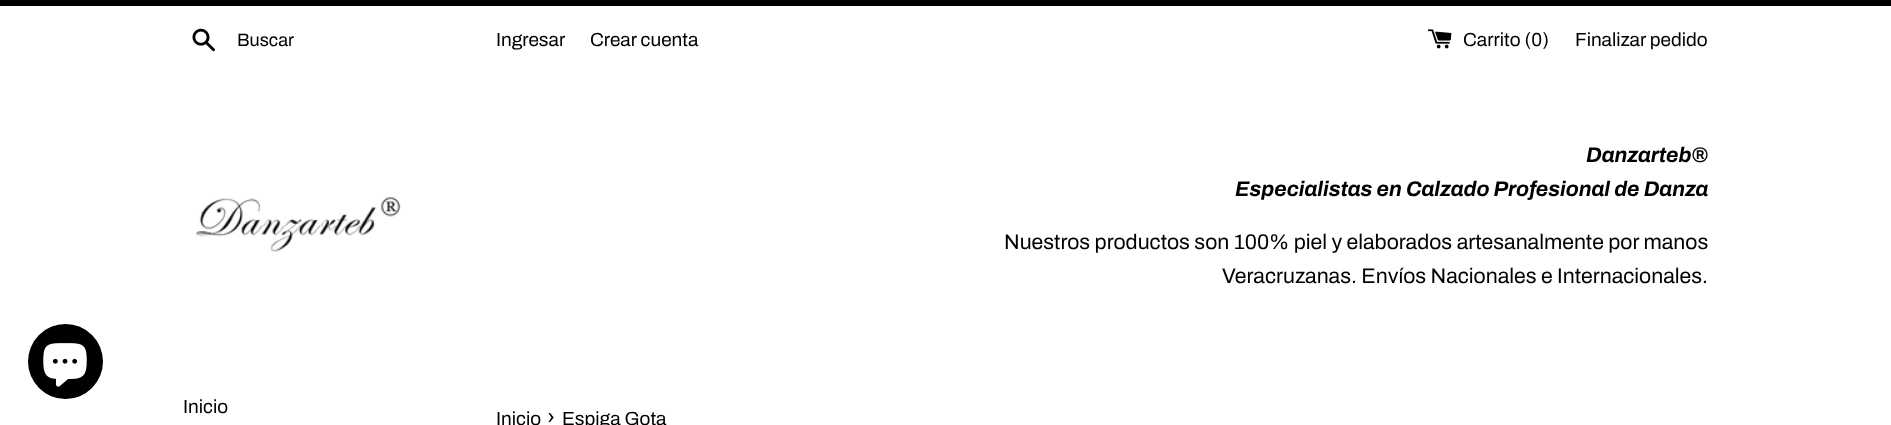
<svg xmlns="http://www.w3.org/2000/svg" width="1891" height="425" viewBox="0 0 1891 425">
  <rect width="100%" height="100%" fill="rgb(255,255,255)"/>
  <rect x="0" y="0" width="1891" height="6" fill="rgb(0,0,0)"/>
  <image x="192" y="28" width="23" height="24" href="pic1.png"/>
  <text x="237" y="46" font-family="Archivo" font-size="18" fill="rgb(0,0,0)">Buscar</text>
  <g font-family="Archivo" font-size="19" fill="rgb(0,0,0)">
    <text x="496" y="46">Ingresar</text>
    <text x="590" y="46">Crear cuenta</text>
  </g>
  <image x="1428" y="29" width="24" height="20" href="pic2.png"/>
  <g font-family="Archivo" font-size="19" fill="rgb(0,0,0)">
    <text x="1463" y="46">Carrito (0)</text>
    <text x="1575" y="46">Finalizar pedido</text>
  </g>
  <image x="196" y="196" width="205" height="56" href="pic3.png"/>
  <g font-family="Archivo" font-size="21.25" font-weight="bold" font-style="italic" fill="rgb(0,0,0)">
    <text x="1586" y="162">Danzarteb®</text>
    <text x="1235" y="196">Especialistas en Calzado Profesional de Danza</text>
  </g>
  <g font-family="Archivo" font-size="21.25" fill="rgb(0,0,0)">
    <text x="1004" y="249">Nuestros productos son 100% piel y elaborados artesanalmente por manos</text>
    <text x="1222" y="283">Veracruzanas. Envíos Nacionales e Internacionales.</text>
  </g>
  <circle cx="65.5" cy="361.5" r="37.5" fill="rgb(0,0,0)"/>
  <image x="43" y="343" width="44" height="44" href="pic4.png"/>
  <g font-family="Archivo" font-size="19" fill="rgb(0,0,0)">
    <text x="183" y="413">Inicio</text>
    <text x="496" y="425">Inicio</text>
  </g>
  <text x="547" y="425" font-family="Archivo" font-size="23" fill="rgb(0,0,0)">›</text>
  <text x="562" y="425" font-family="Archivo" font-size="19" fill="rgb(0,0,0)">Espiga Gota</text>
</svg>
